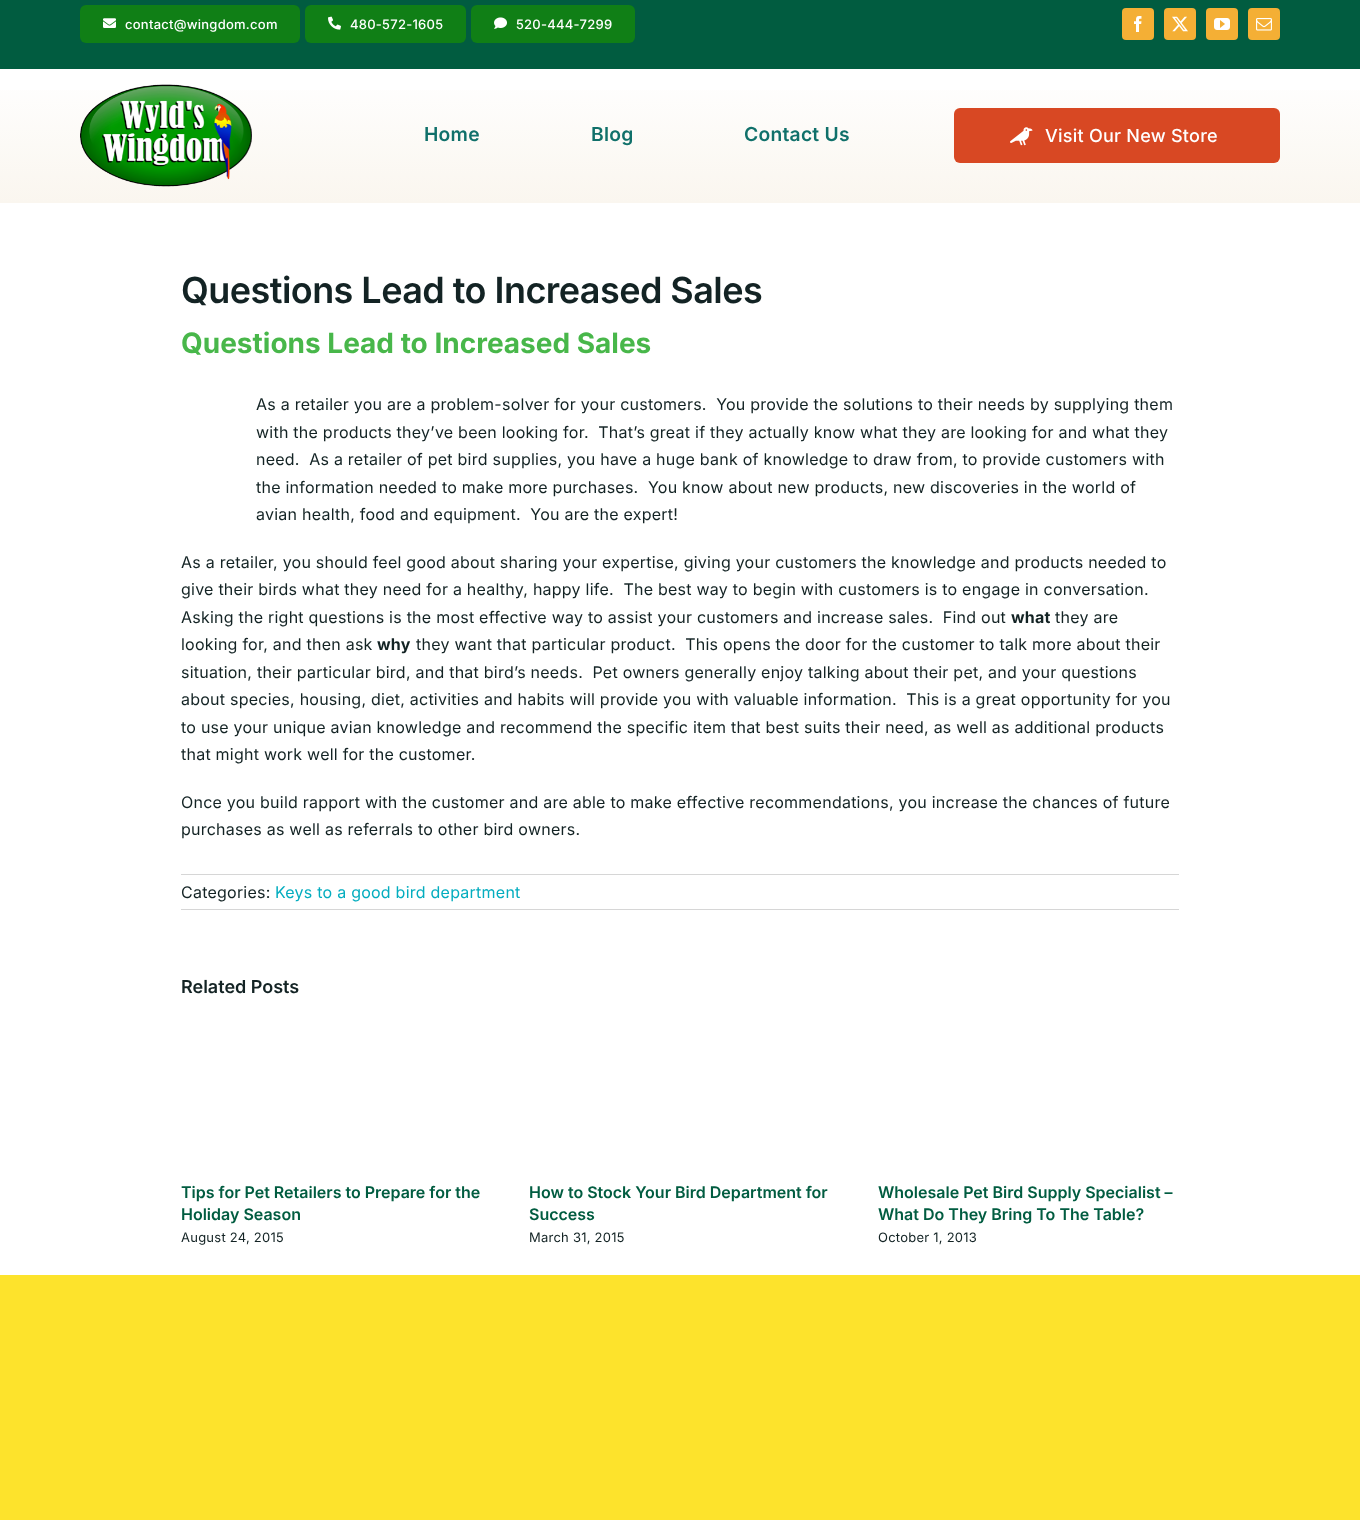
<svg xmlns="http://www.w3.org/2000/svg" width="1360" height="1520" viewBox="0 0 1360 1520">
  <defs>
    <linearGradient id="g1" gradientUnits="userSpaceOnUse" x1="680" y1="69" x2="680" y2="203"><stop offset="0" stop-color="rgb(255,255,255)"/><stop offset="1" stop-color="rgb(250,246,239)"/></linearGradient>
  </defs>
  <rect width="100%" height="100%" fill="rgb(255,255,255)"/>
  <rect x="0" y="0" width="1360" height="69" fill="rgb(1,92,64)"/>
  <rect x="80" y="5" width="220" height="38" rx="6" fill="rgb(16,127,22)"/>
  <image x="103" y="18" width="13" height="10" href="pic1.png"/>
  <text x="125" y="29" font-family="Inter" font-size="13" font-weight="500" letter-spacing="0.25" fill="rgb(255,255,255)">contact@wingdom.com</text>
  <rect x="305" y="5" width="161" height="38" rx="6" fill="rgb(16,127,22)"/>
  <image x="328" y="16" width="13" height="14" href="pic2.png"/>
  <text x="350" y="29" font-family="Inter" font-size="13" font-weight="500" letter-spacing="0.25" fill="rgb(255,255,255)">480-572-1605</text>
  <rect x="471" y="5" width="164" height="38" rx="6" fill="rgb(16,127,22)"/>
  <image x="494" y="17" width="13" height="12" href="pic3.png"/>
  <text x="516" y="29" font-family="Inter" font-size="13" font-weight="500" letter-spacing="0.25" fill="rgb(255,255,255)">520-444-7299</text>
  <rect x="1122" y="8" width="32" height="32" rx="4" fill="rgb(244,175,53)"/>
  <image x="1134" y="16" width="8" height="16" href="pic4.png"/>
  <rect x="1164" y="8" width="32" height="32" rx="4" fill="rgb(244,175,53)"/>
  <image x="1172" y="16" width="16" height="16" href="pic5.png"/>
  <rect x="1206" y="8" width="32" height="32" rx="4" fill="rgb(244,175,53)"/>
  <image x="1214" y="18" width="16" height="12" href="pic6.png"/>
  <rect x="1248" y="8" width="32" height="32" rx="4" fill="rgb(244,175,53)"/>
  <image x="1256" y="18" width="16" height="13" href="pic7.png"/>
  <rect x="0" y="90" width="1360" height="113" fill="url(#g1)"/>
  <image x="80" y="84" width="172" height="103" href="pic8.png"/>
  <g font-family="Inter" font-size="19.25" font-weight="600" letter-spacing="0.25" fill="rgb(16,112,106)">
    <text x="424" y="141">Home</text>
    <text x="591" y="141">Blog</text>
    <text x="744" y="141">Contact Us</text>
  </g>
  <rect x="954" y="108" width="326" height="55" rx="6" fill="rgb(216,72,35)"/>
  <image x="1010" y="127" width="23" height="19" href="pic9.png"/>
  <text x="1045" y="142" font-family="Inter" font-size="18" font-weight="500" letter-spacing="0.25" fill="rgb(255,255,255)">Visit Our New Store</text>
  <text x="181" y="303" font-family="Inter" font-size="36" font-weight="600" letter-spacing="-0.55" fill="rgb(19,35,36)">Questions Lead to Increased Sales</text>
  <text x="181" y="353" font-family="Inter" font-size="28" font-weight="bold" fill="rgb(72,183,74)">Questions Lead to Increased Sales</text>
  <g font-family="Inter" font-size="16" letter-spacing="0.24" fill="rgb(19,35,36)">
    <text xml:space="preserve"><tspan x="256" y="410">As a retailer you are a problem-solver for your customers.  You provide the solutions to their needs by supplying them</tspan><tspan x="256" y="438">with the products they’ve been looking for.  That’s great if they actually know what they are looking for and what they</tspan><tspan x="256" y="465">need.  As a retailer of pet bird supplies, you have a huge bank of knowledge to draw from, to provide customers with</tspan><tspan x="256" y="493">the information needed to make more purchases.  You know about new products, new discoveries in the world of</tspan><tspan x="256" y="520">avian health, food and equipment.  You are the expert!</tspan></text>
    <text xml:space="preserve"><tspan x="181" y="568">As a retailer, you should feel good about sharing your expertise, giving your customers the knowledge and products needed to</tspan><tspan x="181" y="595">give their birds what they need for a healthy, happy life.  The best way to begin with customers is to engage in conversation.</tspan><tspan x="181" y="623">Asking the right questions is the most effective way to assist your customers and increase sales.  Find out</tspan></text>
  </g>
  <text x="1011" y="623" font-family="Inter" font-size="16" font-weight="bold" letter-spacing="0.24" fill="rgb(19,35,36)">what</text>
  <g font-family="Inter" font-size="16" letter-spacing="0.24" fill="rgb(19,35,36)">
    <text x="1055" y="623">they are</text>
    <text x="181" y="650">looking for, and then ask</text>
  </g>
  <text x="377" y="650" font-family="Inter" font-size="16" font-weight="bold" letter-spacing="0.24" fill="rgb(19,35,36)">why</text>
  <g font-family="Inter" font-size="16" letter-spacing="0.24" fill="rgb(19,35,36)">
    <text x="416" y="650" xml:space="preserve">they want that particular product.  This opens the door for the customer to talk more about their</text>
    <text xml:space="preserve"><tspan x="181" y="678">situation, their particular bird, and that bird’s needs.  Pet owners generally enjoy talking about their pet, and your questions</tspan><tspan x="181" y="705">about species, housing, diet, activities and habits will provide you with valuable information.  This is a great opportunity for you</tspan><tspan x="181" y="733">to use your unique avian knowledge and recommend the specific item that best suits their need, as well as additional products</tspan><tspan x="181" y="760">that might work well for the customer.</tspan></text>
    <text>
      <tspan x="181" y="808">Once you build rapport with the customer and are able to make effective recommendations, you increase the chances of future</tspan>
      <tspan x="181" y="835">purchases as well as referrals to other bird owners.</tspan>
    </text>
  </g>
  <rect x="181" y="874" width="998" height="1" fill="rgb(214,214,214)"/>
  <rect x="181" y="909" width="998" height="1" fill="rgb(214,214,214)"/>
  <text x="181" y="898" font-family="Inter" font-size="16" letter-spacing="0.24" fill="rgb(19,35,36)">Categories:</text>
  <text x="275" y="898" font-family="Inter" font-size="16" letter-spacing="0.24" fill="rgb(4,173,191)">Keys to a good bird department</text>
  <text x="181" y="993" font-family="Inter" font-size="18" font-weight="600" fill="rgb(19,35,36)">Related Posts</text>
  <g font-family="Inter" font-size="16" font-weight="600" fill="rgb(1,92,64)">
    <text>
      <tspan x="181" y="1198">Tips for Pet Retailers to Prepare for the</tspan>
      <tspan x="181" y="1220">Holiday Season</tspan>
    </text>
  </g>
  <text x="181" y="1242" font-family="Inter" font-size="13" letter-spacing="0.24" fill="rgb(19,35,36)">August 24, 2015</text>
  <g font-family="Inter" font-size="16" font-weight="600" fill="rgb(1,92,64)">
    <text>
      <tspan x="529" y="1198">How to Stock Your Bird Department for</tspan>
      <tspan x="529" y="1220">Success</tspan>
    </text>
  </g>
  <text x="529" y="1242" font-family="Inter" font-size="13" letter-spacing="0.24" fill="rgb(19,35,36)">March 31, 2015</text>
  <g font-family="Inter" font-size="16" font-weight="600" fill="rgb(1,92,64)">
    <text>
      <tspan x="878" y="1198">Wholesale Pet Bird Supply Specialist –</tspan>
      <tspan x="878" y="1220">What Do They Bring To The Table?</tspan>
    </text>
  </g>
  <text x="878" y="1242" font-family="Inter" font-size="13" letter-spacing="0.24" fill="rgb(19,35,36)">October 1, 2013</text>
  <rect x="0" y="1275" width="1360" height="245" fill="rgb(253,227,44)"/>
</svg>
